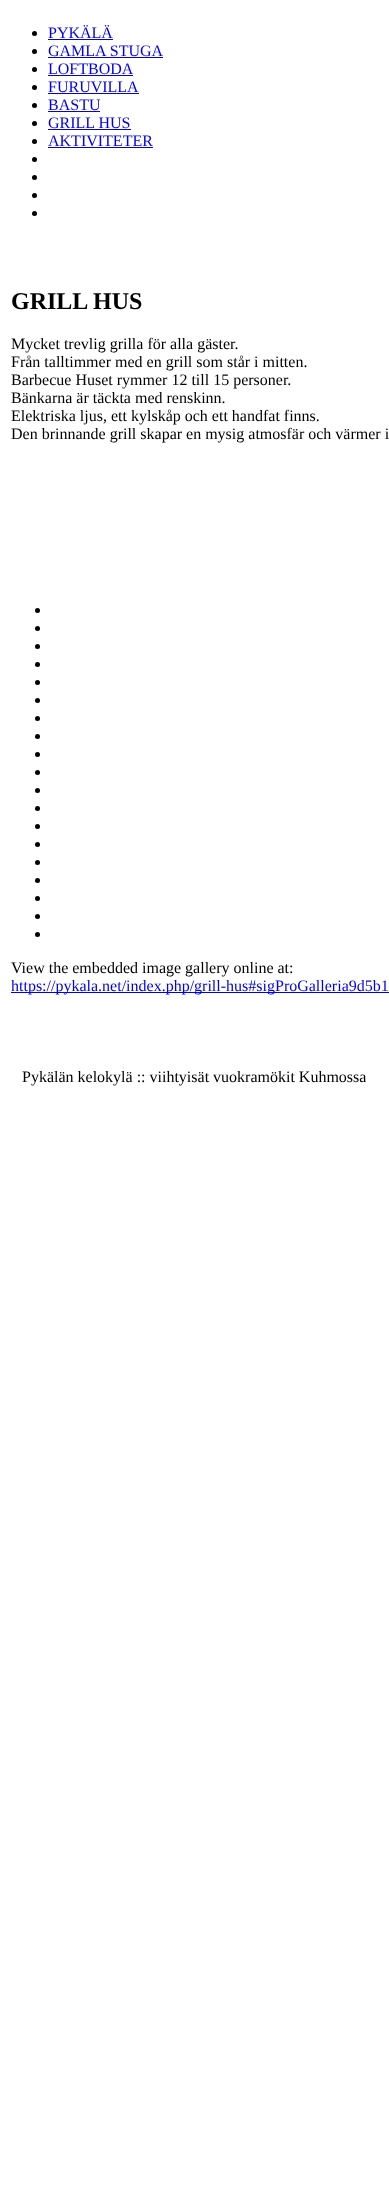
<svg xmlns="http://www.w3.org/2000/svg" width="389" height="2200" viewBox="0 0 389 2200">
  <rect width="100%" height="100%" fill="rgb(255,255,255)"/>
  <circle cx="34.5" cy="33.5" r="2.5" fill="rgb(0,0,0)"/>
  <text x="48" y="38" font-family="Liberation Serif" font-size="16" fill="rgb(0,0,238)">PYKÄLÄ</text>
  <rect x="48" y="39" width="65" height="1" fill="rgb(0,0,238)"/>
  <circle cx="34.5" cy="51.5" r="2.5" fill="rgb(0,0,0)"/>
  <text x="48" y="56" font-family="Liberation Serif" font-size="16" fill="rgb(0,0,238)">GAMLA STUGA</text>
  <rect x="48" y="57" width="115" height="1" fill="rgb(0,0,238)"/>
  <circle cx="34.5" cy="69.5" r="2.5" fill="rgb(0,0,0)"/>
  <text x="48" y="74" font-family="Liberation Serif" font-size="16" fill="rgb(0,0,238)">LOFTBODA</text>
  <rect x="48" y="75" width="85" height="1" fill="rgb(0,0,238)"/>
  <circle cx="34.5" cy="87.5" r="2.5" fill="rgb(0,0,0)"/>
  <text x="48" y="92" font-family="Liberation Serif" font-size="16" fill="rgb(0,0,238)">FURUVILLA</text>
  <rect x="48" y="93" width="91" height="1" fill="rgb(0,0,238)"/>
  <circle cx="34.5" cy="105.5" r="2.5" fill="rgb(0,0,0)"/>
  <text x="48" y="110" font-family="Liberation Serif" font-size="16" fill="rgb(0,0,238)">BASTU</text>
  <rect x="48" y="111" width="52" height="1" fill="rgb(0,0,238)"/>
  <circle cx="34.5" cy="123.5" r="2.5" fill="rgb(0,0,0)"/>
  <text x="48" y="128" font-family="Liberation Serif" font-size="16" fill="rgb(0,0,238)">GRILL HUS</text>
  <rect x="48" y="129" width="83" height="1" fill="rgb(0,0,238)"/>
  <circle cx="34.5" cy="141.5" r="2.5" fill="rgb(0,0,0)"/>
  <text x="48" y="146" font-family="Liberation Serif" font-size="16" fill="rgb(0,0,238)">AKTIVITETER</text>
  <rect x="48" y="147" width="105" height="1" fill="rgb(0,0,238)"/>
  <circle cx="34.5" cy="159.5" r="2.5" fill="rgb(0,0,0)"/>
  <circle cx="34.5" cy="177.5" r="2.5" fill="rgb(0,0,0)"/>
  <circle cx="34.5" cy="195.5" r="2.5" fill="rgb(0,0,0)"/>
  <circle cx="34.5" cy="213.5" r="2.5" fill="rgb(0,0,0)"/>
  <text x="11" y="309" font-family="Liberation Serif" font-size="24" font-weight="bold" fill="rgb(0,0,0)">GRILL HUS</text>
  <g font-family="Liberation Serif" font-size="16" fill="rgb(0,0,0)">
    <text>
      <tspan x="11" y="349">Mycket trevlig grilla för alla gäster.</tspan>
      <tspan x="11" y="367">Från talltimmer med en grill som står i mitten.</tspan>
      <tspan x="11" y="385">Barbecue Huset rymmer 12 till 15 personer.</tspan>
      <tspan x="11" y="403">Bänkarna är täckta med renskinn.</tspan>
      <tspan x="11" y="421">Elektriska ljus, ett kylskåp och ett handfat finns.</tspan>
      <tspan x="11" y="439">Den brinnande grill skapar en mysig atmosfär och värmer i</tspan>
    </text>
  </g>
  <circle cx="37.5" cy="610.5" r="2.5" fill="rgb(0,0,0)"/>
  <circle cx="37.5" cy="628.5" r="2.5" fill="rgb(0,0,0)"/>
  <circle cx="37.5" cy="646.5" r="2.5" fill="rgb(0,0,0)"/>
  <circle cx="37.5" cy="664.5" r="2.5" fill="rgb(0,0,0)"/>
  <circle cx="37.5" cy="682.5" r="2.5" fill="rgb(0,0,0)"/>
  <circle cx="37.5" cy="700.5" r="2.5" fill="rgb(0,0,0)"/>
  <circle cx="37.5" cy="718.5" r="2.5" fill="rgb(0,0,0)"/>
  <circle cx="37.5" cy="736.5" r="2.5" fill="rgb(0,0,0)"/>
  <circle cx="37.5" cy="754.5" r="2.5" fill="rgb(0,0,0)"/>
  <circle cx="37.5" cy="772.5" r="2.5" fill="rgb(0,0,0)"/>
  <circle cx="37.5" cy="790.5" r="2.5" fill="rgb(0,0,0)"/>
  <circle cx="37.5" cy="808.5" r="2.5" fill="rgb(0,0,0)"/>
  <circle cx="37.5" cy="826.5" r="2.5" fill="rgb(0,0,0)"/>
  <circle cx="37.5" cy="844.5" r="2.5" fill="rgb(0,0,0)"/>
  <circle cx="37.5" cy="862.5" r="2.5" fill="rgb(0,0,0)"/>
  <circle cx="37.5" cy="880.5" r="2.5" fill="rgb(0,0,0)"/>
  <circle cx="37.5" cy="898.5" r="2.5" fill="rgb(0,0,0)"/>
  <circle cx="37.5" cy="916.5" r="2.5" fill="rgb(0,0,0)"/>
  <circle cx="37.5" cy="934.5" r="2.5" fill="rgb(0,0,0)"/>
  <text x="11" y="973" font-family="Liberation Serif" font-size="16" fill="rgb(0,0,0)">View the embedded image gallery online at:</text>
  <rect x="11" y="992" width="378" height="1" fill="rgb(0,0,238)"/>
  <text x="11" y="991" font-family="Liberation Serif" font-size="16" fill="rgb(0,0,238)">https://pykala.net/index.php/grill-hus#sigProGalleria9d5b1</text>
  <text x="22" y="1082" font-family="Liberation Serif" font-size="16" fill="rgb(0,0,0)">Pykälän kelokylä :: viihtyisät vuokramökit Kuhmossa</text>
</svg>
